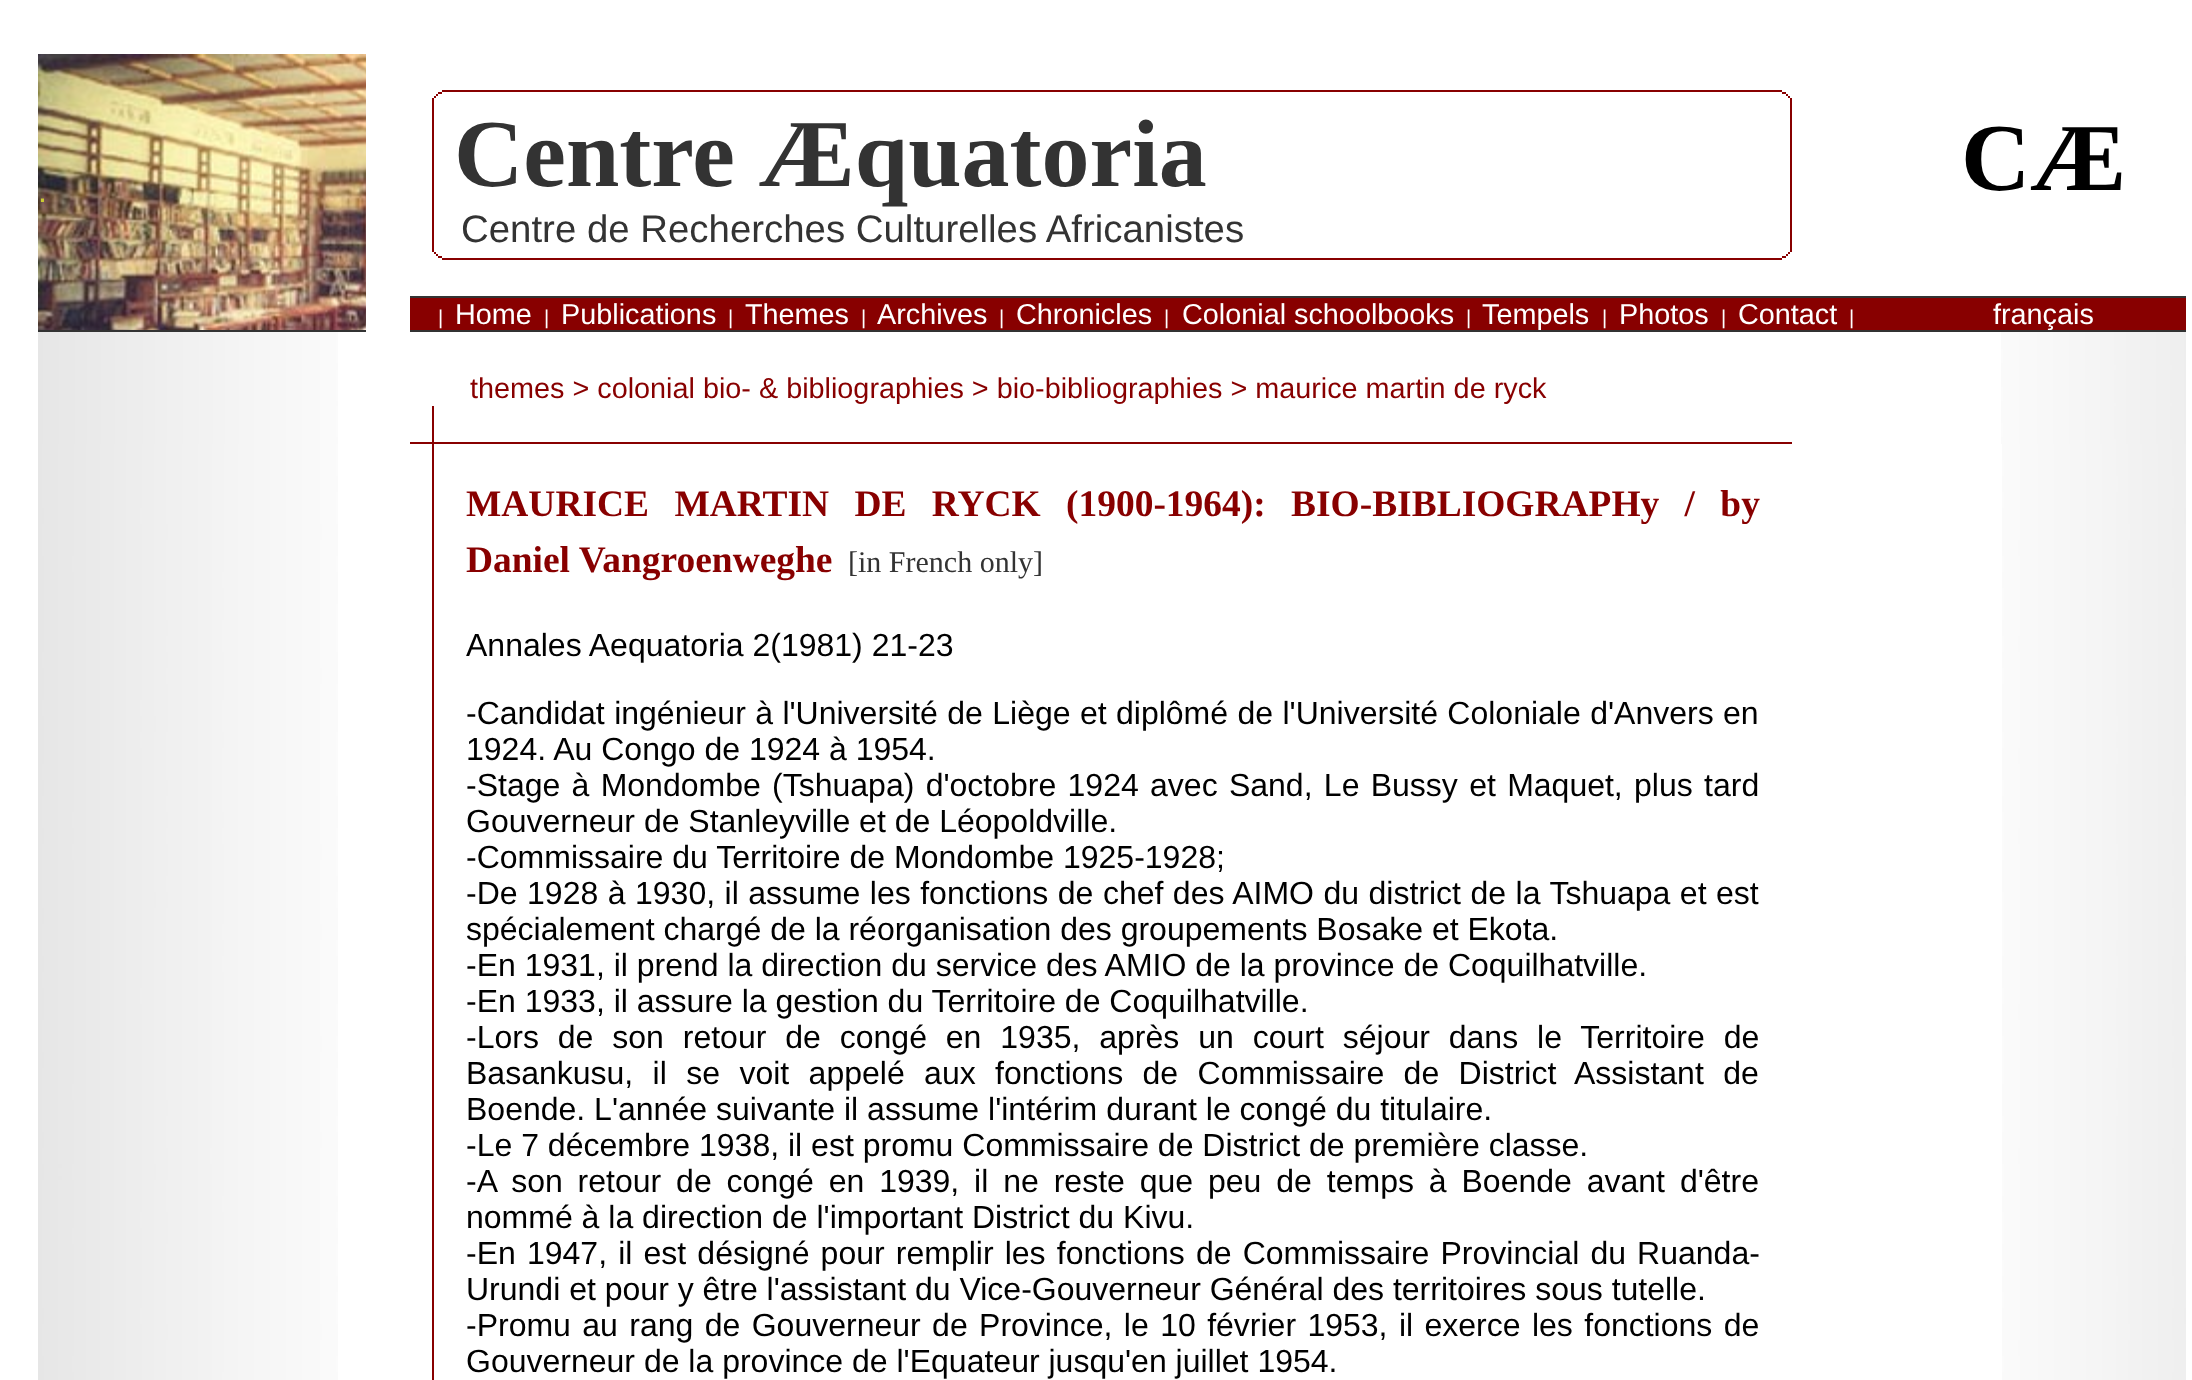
<svg xmlns="http://www.w3.org/2000/svg" width="2192" height="1380" viewBox="0 0 2192 1380">
  <rect width="100%" height="100%" fill="rgb(255,255,255)"/>
  <image x="38" y="54" width="328" height="276" href="pic1.png"/>
  <rect x="38" y="330" width="328" height="2" fill="rgb(51,51,51)"/>
  <text x="38" y="202" font-family="Liberation Sans" font-size="32" fill="rgb(204,204,51)">.</text>
  <rect x="442" y="90" width="1340" height="2" fill="rgb(136,0,0)"/>
  <rect x="1782" y="92" width="4" height="2" fill="rgb(136,0,0)"/>
  <rect x="438" y="92" width="4" height="2" fill="rgb(136,0,0)"/>
  <rect x="1786" y="94" width="2" height="2" fill="rgb(136,0,0)"/>
  <rect x="436" y="94" width="2" height="2" fill="rgb(136,0,0)"/>
  <rect x="1788" y="96" width="2" height="2" fill="rgb(136,0,0)"/>
  <rect x="434" y="96" width="2" height="2" fill="rgb(136,0,0)"/>
  <rect x="1790" y="98" width="2" height="154" fill="rgb(136,0,0)"/>
  <rect x="432" y="98" width="2" height="154" fill="rgb(136,0,0)"/>
  <text x="454" y="186" font-family="Liberation Serif" font-size="96" font-weight="bold" fill="rgb(51,51,51)">Centre Æquatoria</text>
  <text x="461" y="242" font-family="Liberation Sans" font-size="38.4" fill="rgb(51,51,51)">Centre de Recherches Culturelles Africanistes</text>
  <rect x="1788" y="252" width="2" height="2" fill="rgb(136,0,0)"/>
  <rect x="434" y="252" width="2" height="2" fill="rgb(136,0,0)"/>
  <rect x="1786" y="254" width="2" height="2" fill="rgb(136,0,0)"/>
  <rect x="436" y="254" width="2" height="2" fill="rgb(136,0,0)"/>
  <rect x="1782" y="256" width="4" height="2" fill="rgb(136,0,0)"/>
  <rect x="438" y="256" width="4" height="2" fill="rgb(136,0,0)"/>
  <rect x="442" y="258" width="1340" height="2" fill="rgb(136,0,0)"/>
  <text x="1961" y="190" font-family="Liberation Serif" font-size="96" font-weight="bold" fill="rgb(0,0,0)">CÆ</text>
  <rect x="410" y="298" width="1776" height="32" fill="rgb(136,0,0)"/>
  <rect x="410" y="296" width="1776" height="2" fill="rgb(51,51,51)"/>
  <rect x="410" y="330" width="1776" height="2" fill="rgb(51,51,51)"/>
  <text x="438" y="324" font-family="Liberation Sans" font-size="20" fill="rgb(255,255,255)">|</text>
  <text x="455" y="324" font-family="Liberation Sans" font-size="28.8" fill="rgb(255,255,255)">Home</text>
  <text x="544" y="324" font-family="Liberation Sans" font-size="20" fill="rgb(255,255,255)">|</text>
  <text x="561" y="324" font-family="Liberation Sans" font-size="28.8" fill="rgb(255,255,255)">Publications</text>
  <text x="728" y="324" font-family="Liberation Sans" font-size="20" fill="rgb(255,255,255)">|</text>
  <text x="745" y="324" font-family="Liberation Sans" font-size="28.8" fill="rgb(255,255,255)">Themes</text>
  <text x="861" y="324" font-family="Liberation Sans" font-size="20" fill="rgb(255,255,255)">|</text>
  <text x="877" y="324" font-family="Liberation Sans" font-size="28.8" fill="rgb(255,255,255)">Archives</text>
  <text x="999" y="324" font-family="Liberation Sans" font-size="20" fill="rgb(255,255,255)">|</text>
  <text x="1016" y="324" font-family="Liberation Sans" font-size="28.8" fill="rgb(255,255,255)">Chronicles</text>
  <text x="1164" y="324" font-family="Liberation Sans" font-size="20" fill="rgb(255,255,255)">|</text>
  <text x="1182" y="324" font-family="Liberation Sans" font-size="28.8" fill="rgb(255,255,255)">Colonial schoolbooks</text>
  <text x="1466" y="324" font-family="Liberation Sans" font-size="20" fill="rgb(255,255,255)">|</text>
  <text x="1482" y="324" font-family="Liberation Sans" font-size="28.8" fill="rgb(255,255,255)">Tempels</text>
  <text x="1602" y="324" font-family="Liberation Sans" font-size="20" fill="rgb(255,255,255)">|</text>
  <text x="1619" y="324" font-family="Liberation Sans" font-size="28.8" fill="rgb(255,255,255)">Photos</text>
  <text x="1721" y="324" font-family="Liberation Sans" font-size="20" fill="rgb(255,255,255)">|</text>
  <text x="1738" y="324" font-family="Liberation Sans" font-size="28.8" fill="rgb(255,255,255)">Contact</text>
  <text x="1849" y="324" font-family="Liberation Sans" font-size="20" fill="rgb(255,255,255)">|</text>
  <text x="1993" y="324" font-family="Liberation Sans" font-size="28.8" fill="rgb(255,255,255)">français</text>
  <image x="38" y="332" width="300" height="38" href="pic2.png"/>
  <image x="2001" y="332" width="185" height="38" href="pic3.png"/>
  <image x="38" y="370" width="300" height="36" href="pic4.png"/>
  <text x="470" y="398" font-family="Liberation Sans" font-size="28.8" fill="rgb(136,0,0)">themes &gt; colonial bio- &amp; bibliographies &gt; bio-bibliographies &gt; maurice martin de ryck</text>
  <image x="2001" y="370" width="185" height="36" href="pic5.png"/>
  <image x="38" y="406" width="300" height="38" href="pic2.png"/>
  <rect x="410" y="442" width="1382" height="2" fill="rgb(136,0,0)"/>
  <rect x="432" y="406" width="2" height="974" fill="rgb(136,0,0)"/>
  <image x="2001" y="406" width="185" height="38" href="pic3.png"/>
  <image x="38" y="444" width="300" height="936" href="pic6.png"/>
  <g font-family="Liberation Serif" font-size="37.45" font-weight="bold" fill="rgb(136,0,0)">
    <text>
      <tspan x="466" y="516" word-spacing="16">MAURICE MARTIN DE RYCK (1900-1964): BIO-BIBLIOGRAPHy / by</tspan>
      <tspan x="466" y="572">Daniel Vangroenweghe</tspan>
    </text>
  </g>
  <text x="848" y="572" font-family="Liberation Serif" font-size="30" fill="rgb(51,51,51)">[in French only]</text>
  <g font-family="Liberation Sans" font-size="32" fill="rgb(0,0,0)">
    <text x="466" y="656">Annales Aequatoria 2(1981) 21-23</text>
    <text>
      <tspan x="466" y="724" word-spacing="0.5">-Candidat ingénieur à l'Université de Liège et diplômé de l'Université Coloniale d'Anvers en</tspan>
      <tspan x="466" y="760">1924. Au Congo de 1924 à 1954.</tspan>
      <tspan x="466" y="796" word-spacing="2.4">-Stage à Mondombe (Tshuapa) d'octobre 1924 avec Sand, Le Bussy et Maquet, plus tard</tspan>
      <tspan x="466" y="832">Gouverneur de Stanleyville et de Léopoldville.</tspan>
      <tspan x="466" y="868">-Commissaire du Territoire de Mondombe 1925-1928;</tspan>
      <tspan x="466" y="904" word-spacing="0.6">-De 1928 à 1930, il assume les fonctions de chef des AIMO du district de la Tshuapa et est</tspan>
      <tspan x="466" y="940">spécialement chargé de la réorganisation des groupements Bosake et Ekota.</tspan>
      <tspan x="466" y="976">-En 1931, il prend la direction du service des AMIO de la province de Coquilhatville.</tspan>
      <tspan x="466" y="1012">-En 1933, il assure la gestion du Territoire de Coquilhatville.</tspan>
      <tspan x="466" y="1048" word-spacing="10">-Lors de son retour de congé en 1935, après un court séjour dans le Territoire de</tspan>
      <tspan x="466" y="1084" word-spacing="10.5">Basankusu, il se voit appelé aux fonctions de Commissaire de District Assistant de</tspan>
      <tspan x="466" y="1120">Boende. L'année suivante il assume l'intérim durant le congé du titulaire.</tspan>
      <tspan x="466" y="1156">-Le 7 décembre 1938, il est promu Commissaire de District de première classe.</tspan>
      <tspan x="466" y="1192" word-spacing="6">-A son retour de congé en 1939, il ne reste que peu de temps à Boende avant d'être</tspan>
      <tspan x="466" y="1228">nommé à la direction de l'important District du Kivu.</tspan>
      <tspan x="466" y="1264" word-spacing="2.25">-En 1947, il est désigné pour remplir les fonctions de Commissaire Provincial du Ruanda-</tspan>
      <tspan x="466" y="1300">Urundi et pour y être l'assistant du Vice-Gouverneur Général des territoires sous tutelle.</tspan>
      <tspan x="466" y="1336" word-spacing="2.5">-Promu au rang de Gouverneur de Province, le 10 février 1953, il exerce les fonctions de</tspan>
      <tspan x="466" y="1372">Gouverneur de la province de l'Equateur jusqu'en juillet 1954.</tspan>
    </text>
  </g>
  <image x="2002" y="444" width="184" height="936" href="pic7.png"/>
</svg>
